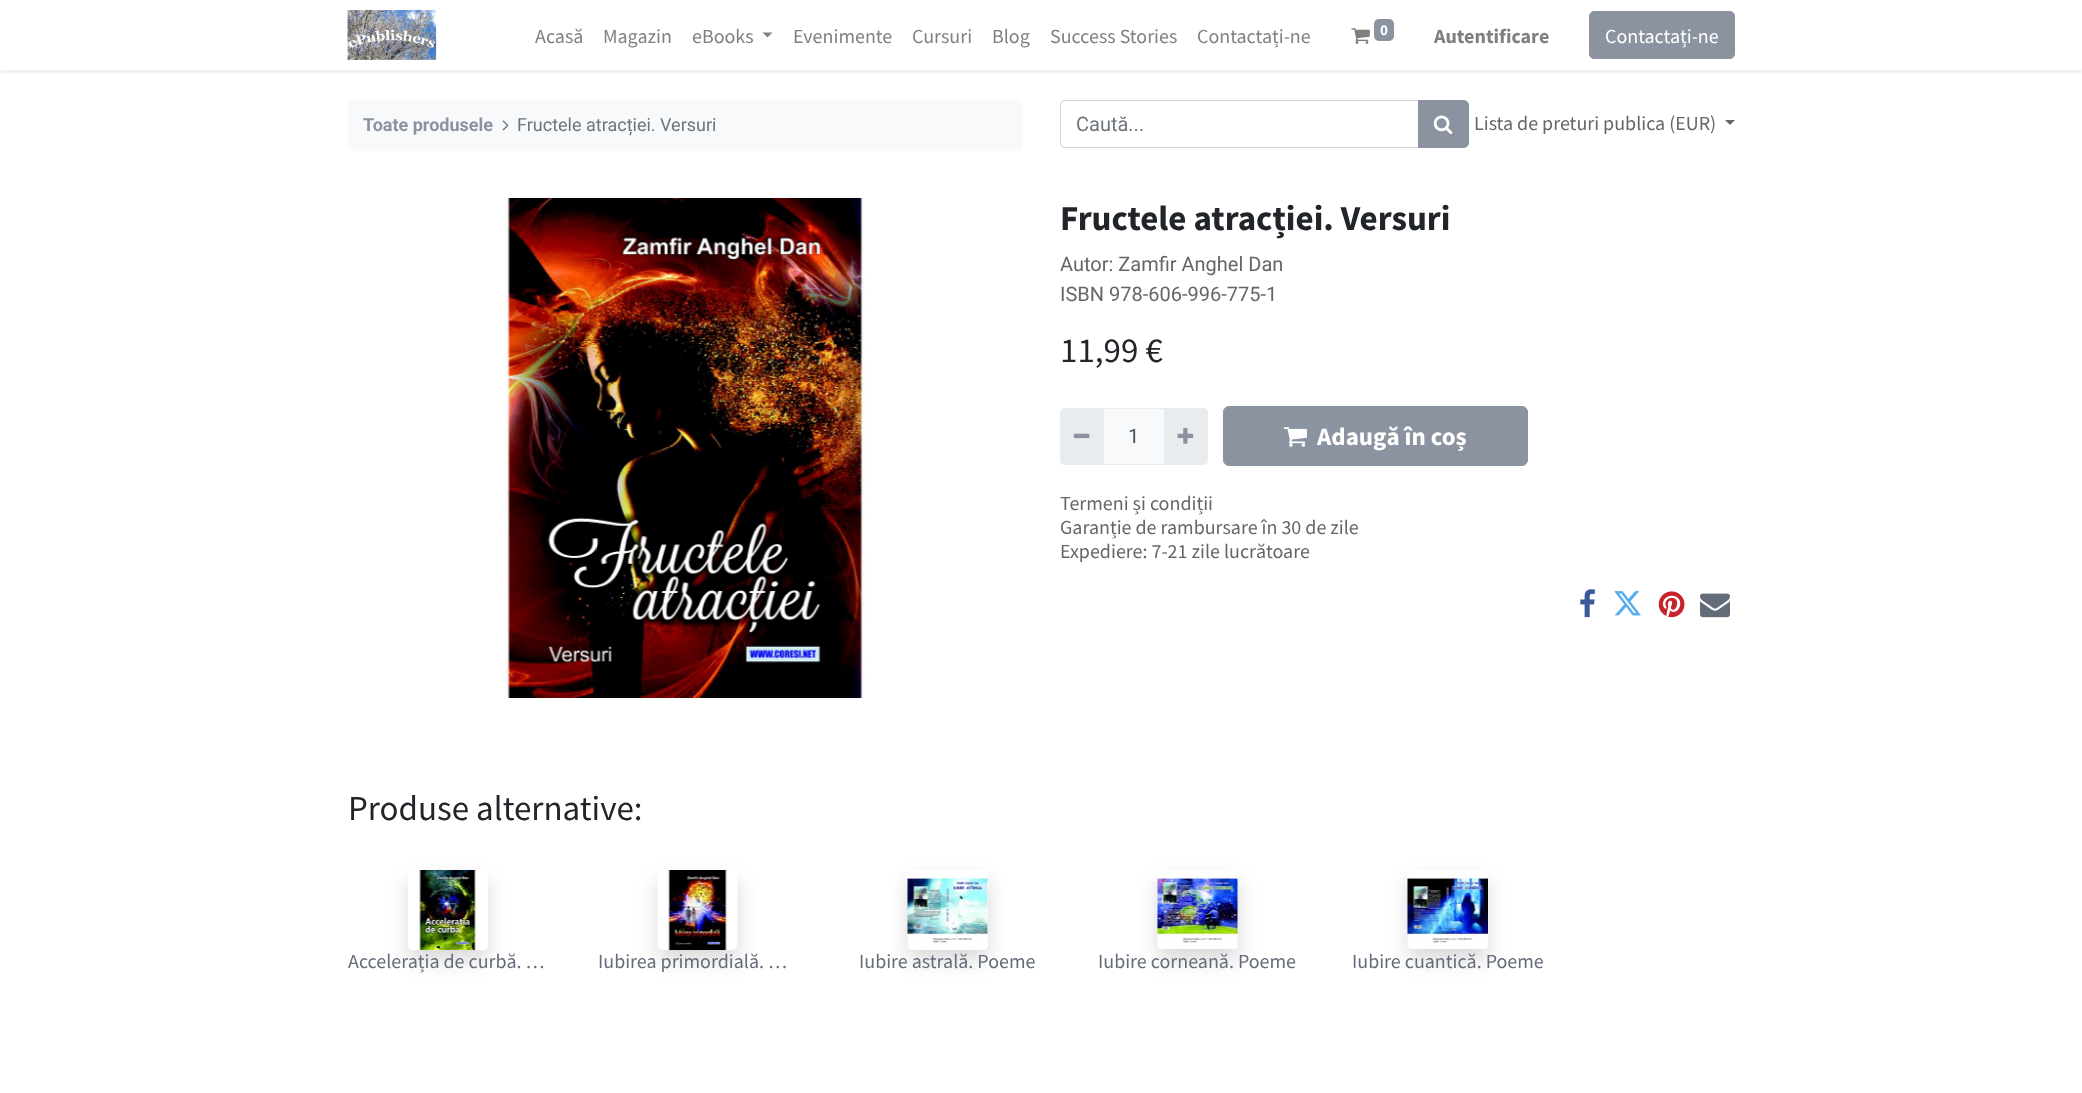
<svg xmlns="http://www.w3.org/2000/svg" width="2082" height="1093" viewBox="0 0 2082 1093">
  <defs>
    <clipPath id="clip1"><rect x="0" y="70" width="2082" height="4"/></clipPath>
    <clipPath id="clip2"><path d="M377 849H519V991H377ZM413 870H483C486 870 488 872 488 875V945C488 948 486 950 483 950H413C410 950 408 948 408 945V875C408 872 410 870 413 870Z" clip-rule="evenodd"/></clipPath>
    <clipPath id="clip3"><path d="M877 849H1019V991H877ZM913 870H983C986 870 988 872 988 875V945C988 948 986 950 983 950H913C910 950 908 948 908 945V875C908 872 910 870 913 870Z" clip-rule="evenodd"/></clipPath>
  </defs>
  <rect width="100%" height="100%" fill="rgb(255,255,255)"/>
  <g clip-path="url(#clip1)">
    <rect x="0" y="3" width="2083" height="70" fill="rgba(0,0,0,0.07)" filter="blur(2.5px)"/>
  </g>
  <image x="347" y="10" width="90" height="50" href="pic1.png"/>
  <g font-family="Source Sans Pro" font-size="20" fill="rgb(128,128,128)">
    <text x="535" y="43">Acasă</text>
    <text x="603" y="43">Magazin</text>
    <text x="692" y="43">eBooks</text>
  </g>
  <path d="M762.5 32.5H772.5L767.5 37.5Z" fill="rgb(128,128,128)"/>
  <g font-family="Source Sans Pro" font-size="20" fill="rgb(128,128,128)">
    <text x="793" y="43">Evenimente</text>
    <text x="912" y="43">Cursuri</text>
    <text x="992" y="43">Blog</text>
    <text x="1050" y="43">Success Stories</text>
    <text x="1197" y="43">Contactați-ne</text>
  </g>
  <image x="1351" y="28" width="19" height="16" href="pic2.png"/>
  <rect x="1374" y="19" width="20" height="22" rx="5" fill="rgb(139,146,160)"/>
  <text x="1380" y="35" font-family="Source Sans Pro" font-size="15" font-weight="bold" fill="rgb(255,255,255)">0</text>
  <text x="1434" y="43" font-family="Source Sans Pro" font-size="20" font-weight="bold" fill="rgb(128,128,128)">Autentificare</text>
  <rect x="1589.5" y="11.5" width="145" height="47" rx="4.5" fill="rgb(139,146,160)" stroke="rgb(139,146,160)"/>
  <text x="1605" y="43" font-family="Source Sans Pro" font-size="20" fill="rgb(255,255,255)">Contactați-ne</text>
  <rect x="348" y="100" width="675" height="51" rx="5" fill="rgb(248,249,250)"/>
  <text x="363" y="131" font-family="Roboto" font-size="18" font-weight="bold" fill="rgb(139,146,160)">Toate produsele</text>
  <image x="502" y="120" width="7" height="11" href="pic3.png"/>
  <text x="517" y="131" font-family="Roboto" font-size="18" fill="rgb(108,117,125)">Fructele atracției. Versuri</text>
  <path d="M1065 100.5H1418.5V147.5H1065C1062.5 147.5 1060.5 145.5 1060.5 143V105C1060.5 102.5 1062.5 100.5 1065 100.5Z" fill="none" stroke="rgb(206,212,218)"/>
  <text x="1076" y="131" font-family="Roboto" font-size="20" fill="rgb(108,117,125)">Caută...</text>
  <path d="M1418.5 100.5H1464C1466.5 100.5 1468.5 102.5 1468.5 105V143C1468.5 145.5 1466.5 147.5 1464 147.5H1418.5Z" fill="rgb(139,146,160)" stroke="rgb(139,146,160)"/>
  <image x="1433" y="115" width="20" height="20" href="pic4.png"/>
  <text x="1474" y="130" font-family="Source Sans Pro" font-size="20" fill="rgb(100,102,105)">Lista de preturi publica (EUR)</text>
  <path d="M1725 120H1735L1730 125Z" fill="rgb(100,102,105)"/>
  <image x="505" y="198" width="360" height="500" href="pic5.png"/>
  <text x="1060" y="230" font-family="Source Sans Pro" font-size="35" font-weight="bold" fill="rgb(33,37,41)">Fructele atracției. Versuri</text>
  <g font-family="Roboto" font-size="20" fill="rgb(100,102,105)">
    <text>
      <tspan x="1060" y="271">Autor: Zamfir Anghel Dan</tspan>
      <tspan x="1060" y="301">ISBN 978-606-996-775-1</tspan>
    </text>
  </g>
  <text x="1060" y="362" font-family="Source Sans Pro" font-size="35" fill="rgb(33,37,41)">11,99 €</text>
  <rect x="1103.5" y="408.5" width="61" height="56" fill="rgb(248,249,250)" stroke="rgb(233,236,239)"/>
  <path d="M1065 408H1104V465H1065C1062 465 1060 463 1060 460V413C1060 410 1062 408 1065 408Z" fill="rgb(233,236,239)"/>
  <image x="1073" y="433" width="17" height="6" href="pic6.png"/>
  <text x="1128" y="443" font-family="Roboto" font-size="20" fill="rgb(73,80,87)">1</text>
  <path d="M1164 408H1203C1206 408 1208 410 1208 413V460C1208 463 1206 465 1203 465H1164Z" fill="rgb(233,236,239)"/>
  <image x="1177" y="428" width="17" height="16" href="pic7.png"/>
  <rect x="1223.5" y="406.5" width="304" height="59" rx="5.5" fill="rgb(139,146,160)" stroke="rgb(139,146,160)"/>
  <image x="1283" y="427" width="24" height="20" href="pic8.png"/>
  <text x="1317" y="445" font-family="Source Sans Pro" font-size="25" font-weight="bold" fill="rgb(255,255,255)">Adaugă în coș</text>
  <g font-family="Source Sans Pro" font-size="20" fill="rgb(100,102,105)">
    <text>
      <tspan x="1060" y="510">Termeni și condiții</tspan>
      <tspan x="1060" y="534">Garanție de rambursare în 30 de zile</tspan>
      <tspan x="1060" y="558">Expediere: 7-21 zile lucrătoare</tspan>
    </text>
  </g>
  <image x="1580" y="589" width="15" height="29" href="pic9.png"/>
  <image x="1614" y="591" width="27" height="25" href="pic10.png"/>
  <image x="1658" y="591" width="27" height="27" href="pic11.png"/>
  <image x="1700" y="593" width="30" height="25" href="pic12.png"/>
  <text x="348" y="820" font-family="Source Sans Pro" font-size="35" fill="rgb(33,37,41)">Produse alternative:</text>
  <g clip-path="url(#clip2)">
    <rect x="408" y="880" width="80" height="80" rx="5" fill="rgba(0,0,0,0.15)" filter="blur(10px)"/>
  </g>
  <image x="417" y="870" width="71" height="80" href="pic13.png"/>
  <text x="348" y="968" font-family="Source Sans Pro" font-size="20" fill="rgb(100,108,122)">Accelerația de curbă. …</text>
  <rect x="658" y="880" width="80" height="80" rx="5" fill="rgba(0,0,0,0.15)" filter="blur(10px)"/>
  <image x="657" y="870" width="81" height="80" href="pic14.png"/>
  <text x="598" y="968" font-family="Source Sans Pro" font-size="20" fill="rgb(100,108,122)">Iubirea primordială. …</text>
  <g clip-path="url(#clip3)">
    <rect x="908" y="880" width="80" height="80" rx="5" fill="rgba(0,0,0,0.15)" filter="blur(10px)"/>
  </g>
  <image x="907" y="875" width="81" height="74" href="pic15.png"/>
  <text x="859" y="968" font-family="Source Sans Pro" font-size="20" fill="rgb(100,108,122)">Iubire astrală. Poeme</text>
  <rect x="1158" y="880" width="80" height="80" rx="5" fill="rgba(0,0,0,0.15)" filter="blur(10px)"/>
  <image x="1157" y="870" width="81" height="79" href="pic16.png"/>
  <text x="1098" y="968" font-family="Source Sans Pro" font-size="20" fill="rgb(100,108,122)">Iubire corneană. Poeme</text>
  <rect x="1408" y="880" width="80" height="80" rx="5" fill="rgba(0,0,0,0.15)" filter="blur(10px)"/>
  <image x="1407" y="870" width="81" height="79" href="pic17.png"/>
  <text x="1352" y="968" font-family="Source Sans Pro" font-size="20" fill="rgb(100,108,122)">Iubire cuantică. Poeme</text>
</svg>
